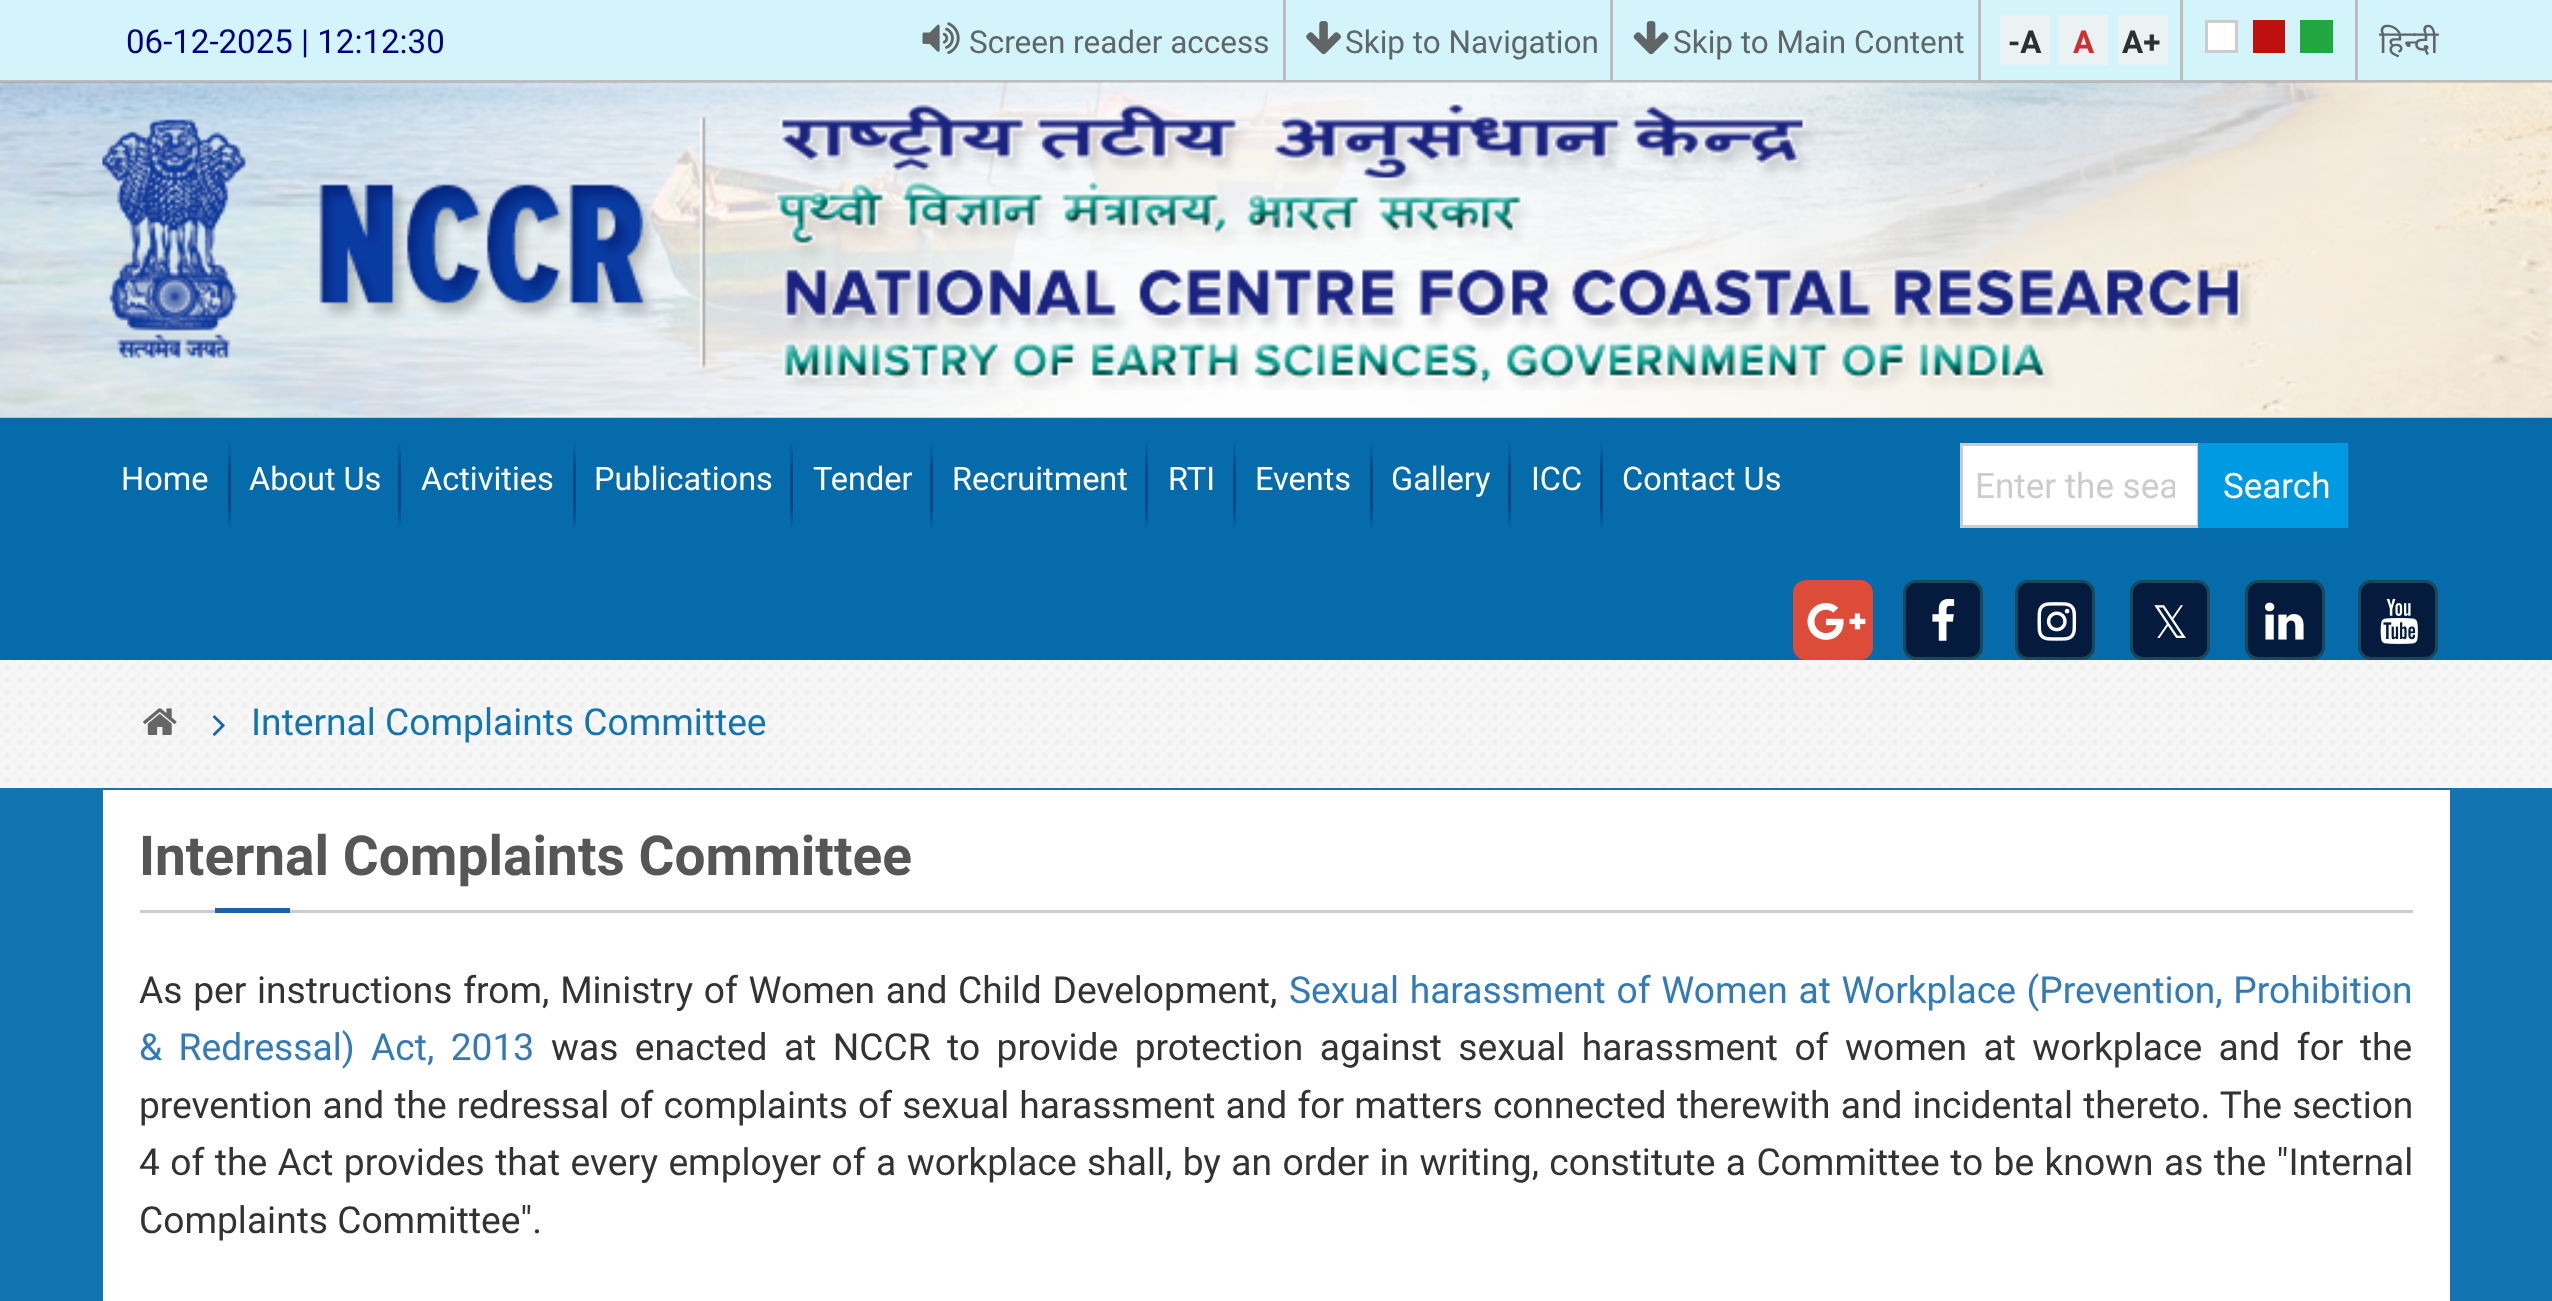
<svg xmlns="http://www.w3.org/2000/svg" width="2552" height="1301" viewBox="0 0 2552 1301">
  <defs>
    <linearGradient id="g1" gradientUnits="userSpaceOnUse" x1="229" y1="443" x2="229" y2="530"><stop offset="0" stop-color="rgb(5,107,170)"/><stop offset="0.31" stop-color="rgb(0,70,137)"/><stop offset="0.72" stop-color="rgb(0,70,137)"/><stop offset="1" stop-color="rgb(5,107,170)"/></linearGradient>
    <linearGradient id="g2" gradientUnits="userSpaceOnUse" x1="399" y1="443" x2="399" y2="530"><stop offset="0" stop-color="rgb(5,107,170)"/><stop offset="0.31" stop-color="rgb(0,70,137)"/><stop offset="0.72" stop-color="rgb(0,70,137)"/><stop offset="1" stop-color="rgb(5,107,170)"/></linearGradient>
    <linearGradient id="g3" gradientUnits="userSpaceOnUse" x1="574" y1="443" x2="574" y2="530"><stop offset="0" stop-color="rgb(5,107,170)"/><stop offset="0.31" stop-color="rgb(0,70,137)"/><stop offset="0.72" stop-color="rgb(0,70,137)"/><stop offset="1" stop-color="rgb(5,107,170)"/></linearGradient>
    <linearGradient id="g4" gradientUnits="userSpaceOnUse" x1="791" y1="443" x2="791" y2="530"><stop offset="0" stop-color="rgb(5,107,170)"/><stop offset="0.31" stop-color="rgb(0,70,137)"/><stop offset="0.72" stop-color="rgb(0,70,137)"/><stop offset="1" stop-color="rgb(5,107,170)"/></linearGradient>
    <linearGradient id="g5" gradientUnits="userSpaceOnUse" x1="931" y1="443" x2="931" y2="530"><stop offset="0" stop-color="rgb(5,107,170)"/><stop offset="0.31" stop-color="rgb(0,70,137)"/><stop offset="0.72" stop-color="rgb(0,70,137)"/><stop offset="1" stop-color="rgb(5,107,170)"/></linearGradient>
    <linearGradient id="g6" gradientUnits="userSpaceOnUse" x1="1146" y1="443" x2="1146" y2="530"><stop offset="0" stop-color="rgb(5,107,170)"/><stop offset="0.31" stop-color="rgb(0,70,137)"/><stop offset="0.72" stop-color="rgb(0,70,137)"/><stop offset="1" stop-color="rgb(5,107,170)"/></linearGradient>
    <linearGradient id="g7" gradientUnits="userSpaceOnUse" x1="1234" y1="443" x2="1234" y2="530"><stop offset="0" stop-color="rgb(5,107,170)"/><stop offset="0.31" stop-color="rgb(0,70,137)"/><stop offset="0.72" stop-color="rgb(0,70,137)"/><stop offset="1" stop-color="rgb(5,107,170)"/></linearGradient>
    <linearGradient id="g8" gradientUnits="userSpaceOnUse" x1="1371" y1="443" x2="1371" y2="530"><stop offset="0" stop-color="rgb(5,107,170)"/><stop offset="0.31" stop-color="rgb(0,70,137)"/><stop offset="0.72" stop-color="rgb(0,70,137)"/><stop offset="1" stop-color="rgb(5,107,170)"/></linearGradient>
    <linearGradient id="g9" gradientUnits="userSpaceOnUse" x1="1509" y1="443" x2="1509" y2="530"><stop offset="0" stop-color="rgb(5,107,170)"/><stop offset="0.31" stop-color="rgb(0,70,137)"/><stop offset="0.72" stop-color="rgb(0,70,137)"/><stop offset="1" stop-color="rgb(5,107,170)"/></linearGradient>
    <linearGradient id="g10" gradientUnits="userSpaceOnUse" x1="1601" y1="443" x2="1601" y2="530"><stop offset="0" stop-color="rgb(5,107,170)"/><stop offset="0.31" stop-color="rgb(0,70,137)"/><stop offset="0.72" stop-color="rgb(0,70,137)"/><stop offset="1" stop-color="rgb(5,107,170)"/></linearGradient>
    <clipPath id="clip1"><rect x="1975" y="465" width="200" height="40"/></clipPath>
  </defs>
  <rect width="100%" height="100%" fill="rgb(18,117,178)"/>
  <rect x="0" y="417" width="2552" height="1" fill="rgb(125,179,213)"/>
  <rect x="0" y="0" width="2552" height="80" fill="rgb(212,244,252)"/>
  <rect x="0" y="80" width="2552" height="3" fill="rgb(189,189,189)"/>
  <text x="126" y="53" font-family="Roboto" font-size="33.1" fill="rgb(0,0,128)">06-12-2025 | 12:12:30</text>
  <rect x="1283" y="0" width="3" height="83" fill="rgb(189,189,189)"/>
  <image x="922" y="22" width="38" height="33" href="pic1.png"/>
  <text x="969" y="53" font-family="Roboto" font-size="31.5" fill="rgb(95,102,103)">Screen reader access</text>
  <rect x="1610" y="0" width="3" height="83" fill="rgb(189,189,189)"/>
  <image x="1306" y="21" width="35" height="34" href="pic2.png"/>
  <text x="1345" y="53" font-family="Roboto" font-size="31.5" fill="rgb(95,102,103)">Skip to Navigation</text>
  <rect x="1978" y="0" width="3" height="83" fill="rgb(189,189,189)"/>
  <image x="1633" y="21" width="36" height="34" href="pic3.png"/>
  <text x="1673" y="53" font-family="Roboto" font-size="31.5" fill="rgb(95,102,103)">Skip to Main Content</text>
  <rect x="2180" y="0" width="3" height="83" fill="rgb(189,189,189)"/>
  <rect x="2000" y="15" width="50" height="50" fill="rgb(235,242,243)"/>
  <text x="2008" y="53" font-family="Roboto" font-size="31.5" font-weight="bold" fill="rgb(42,49,50)">-A</text>
  <rect x="2058" y="15" width="50" height="50" fill="rgb(235,242,243)"/>
  <text x="2073" y="53" font-family="Roboto" font-size="31.5" font-weight="bold" fill="rgb(201,49,51)">A</text>
  <rect x="2118" y="15" width="50" height="50" fill="rgb(235,242,243)"/>
  <text x="2122" y="53" font-family="Roboto" font-size="31.5" font-weight="bold" fill="rgb(42,49,50)">A+</text>
  <rect x="2355" y="0" width="3" height="83" fill="rgb(189,189,189)"/>
  <rect x="2206.5" y="21.5" width="30" height="30" fill="rgb(255,255,255)" stroke="rgb(204,204,204)" stroke-width="3"/>
  <rect x="2253" y="20" width="32" height="33" fill="rgb(191,16,16)"/>
  <rect x="2300" y="20" width="33" height="33" fill="rgb(33,167,63)"/>
  <text x="2379" y="53" font-family="Noto Sans" font-size="31.5" fill="rgb(95,102,103)">हिन्दी</text>
  <image x="0" y="82" width="2552" height="336" href="pic4.png"/>
  <image x="102" y="102" width="2149" height="288" href="pic5.png"/>
  <rect x="0" y="418" width="2552" height="242" fill="rgb(5,107,170)"/>
  <text x="121" y="490" font-family="Roboto" font-size="32.5" fill="rgb(255,255,255)">Home</text>
  <rect x="228" y="443" width="3" height="87" fill="url(#g1)"/>
  <text x="249" y="490" font-family="Roboto" font-size="32.5" fill="rgb(255,255,255)">About Us</text>
  <rect x="398" y="443" width="3" height="87" fill="url(#g2)"/>
  <text x="421" y="490" font-family="Roboto" font-size="32.5" fill="rgb(255,255,255)">Activities</text>
  <rect x="573" y="443" width="3" height="87" fill="url(#g3)"/>
  <text x="594" y="490" font-family="Roboto" font-size="32.5" fill="rgb(255,255,255)">Publications</text>
  <rect x="790" y="443" width="3" height="87" fill="url(#g4)"/>
  <text x="813" y="490" font-family="Roboto" font-size="32.5" fill="rgb(255,255,255)">Tender</text>
  <rect x="930" y="443" width="3" height="87" fill="url(#g5)"/>
  <text x="952" y="490" font-family="Roboto" font-size="32.5" fill="rgb(255,255,255)">Recruitment</text>
  <rect x="1145" y="443" width="3" height="87" fill="url(#g6)"/>
  <text x="1168" y="490" font-family="Roboto" font-size="32.5" fill="rgb(255,255,255)">RTI</text>
  <rect x="1233" y="443" width="3" height="87" fill="url(#g7)"/>
  <text x="1255" y="490" font-family="Roboto" font-size="32.5" fill="rgb(255,255,255)">Events</text>
  <rect x="1370" y="443" width="3" height="87" fill="url(#g8)"/>
  <text x="1391" y="490" font-family="Roboto" font-size="32.5" fill="rgb(255,255,255)">Gallery</text>
  <rect x="1508" y="443" width="3" height="87" fill="url(#g9)"/>
  <text x="1531" y="490" font-family="Roboto" font-size="32.5" fill="rgb(255,255,255)">ICC</text>
  <rect x="1600" y="443" width="3" height="87" fill="url(#g10)"/>
  <text x="1622" y="490" font-family="Roboto" font-size="32.5" fill="rgb(255,255,255)">Contact Us</text>
  <rect x="1961.5" y="444.5" width="237" height="82" fill="rgb(255,255,255)" stroke="rgb(204,204,204)" stroke-width="3"/>
  <g clip-path="url(#clip1)">
    <text x="1975" y="498" font-family="Roboto" font-size="35" fill="rgb(204,204,204)">Enter the sea</text>
  </g>
  <rect x="2198" y="443" width="150" height="85" fill="rgb(0,154,226)"/>
  <text x="2223" y="498" font-family="Roboto" font-size="35" fill="rgb(255,255,255)">Search</text>
  <rect x="1794.5" y="581.5" width="77" height="77" rx="11.5" fill="rgb(221,75,57)" stroke="rgb(221,75,57)" stroke-width="3"/>
  <image x="1807" y="603" width="59" height="37" href="pic6.png"/>
  <rect x="1904.5" y="581.5" width="77" height="77" rx="11.5" fill="rgb(4,27,61)" stroke="rgb(26,71,90)" stroke-width="3"/>
  <image x="1932" y="598" width="23" height="43" href="pic7.png"/>
  <rect x="2016.5" y="581.5" width="77" height="77" rx="11.5" fill="rgb(4,27,61)" stroke="rgb(26,71,90)" stroke-width="3"/>
  <image x="2037" y="602" width="40" height="39" href="pic8.png"/>
  <rect x="2131.5" y="581.5" width="77" height="77" rx="11.5" fill="rgb(4,27,61)" stroke="rgb(26,71,90)" stroke-width="3"/>
  <text x="2152" y="638" font-family="DejaVu Sans" font-size="45" fill="rgb(255,255,255)">𝕏</text>
  <rect x="2246.5" y="581.5" width="77" height="77" rx="11.5" fill="rgb(4,27,61)" stroke="rgb(26,71,90)" stroke-width="3"/>
  <image x="2265" y="602" width="39" height="38" href="pic9.png"/>
  <rect x="2359.5" y="581.5" width="77" height="77" rx="11.5" fill="rgb(4,27,61)" stroke="rgb(26,71,90)" stroke-width="3"/>
  <image x="2380" y="598" width="38" height="46" href="pic10.png"/>
  <rect x="0" y="787" width="2552" height="1" fill="rgb(247,247,247)"/>
  <image x="0" y="660" width="2552" height="127" href="pic11.png"/>
  <image x="143" y="708" width="34" height="27" href="pic12.png"/>
  <image x="212" y="715" width="13" height="21" href="pic13.png"/>
  <text x="251" y="735" font-family="Roboto" font-size="37.2" fill="rgb(18,117,178)">Internal Complaints Committee</text>
  <rect x="103" y="790" width="2347" height="511" fill="rgb(255,255,255)"/>
  <text x="139" y="875" font-family="Roboto" font-size="55" font-weight="bold" fill="rgb(86,86,86)">Internal Complaints Committee</text>
  <rect x="140" y="910" width="2273" height="3" fill="rgb(204,204,204)"/>
  <rect x="215" y="908" width="75" height="5" fill="rgb(30,97,164)"/>
  <text x="139" y="1003" word-spacing="1.5" font-family="Roboto" font-size="37.2" fill="rgb(51,51,51)">As per instructions from, Ministry of Women and Child Development,</text>
  <g font-family="Roboto" font-size="37.2" fill="rgb(51,122,183)">
    <text x="1289" y="1003" word-spacing="1.5">Sexual harassment of Women at Workplace (Prevention, Prohibition</text>
    <text x="139" y="1060" word-spacing="7.25">&amp; Redressal) Act, 2013</text>
  </g>
  <g font-family="Roboto" font-size="37.2" fill="rgb(51,51,51)">
    <text x="551" y="1060" word-spacing="7.25">was enacted at NCCR to provide protection against sexual harassment of women at workplace and for the</text>
    <text>
      <tspan x="139" y="1118" word-spacing="0.9">prevention and the redressal of complaints of sexual harassment and for matters connected therewith and incidental thereto. The section</tspan>
      <tspan x="139" y="1175" word-spacing="1.2">4 of the Act provides that every employer of a workplace shall, by an order in writing, constitute a Committee to be known as the "Internal</tspan>
      <tspan x="139" y="1233">Complaints Committee".</tspan>
    </text>
  </g>
</svg>
